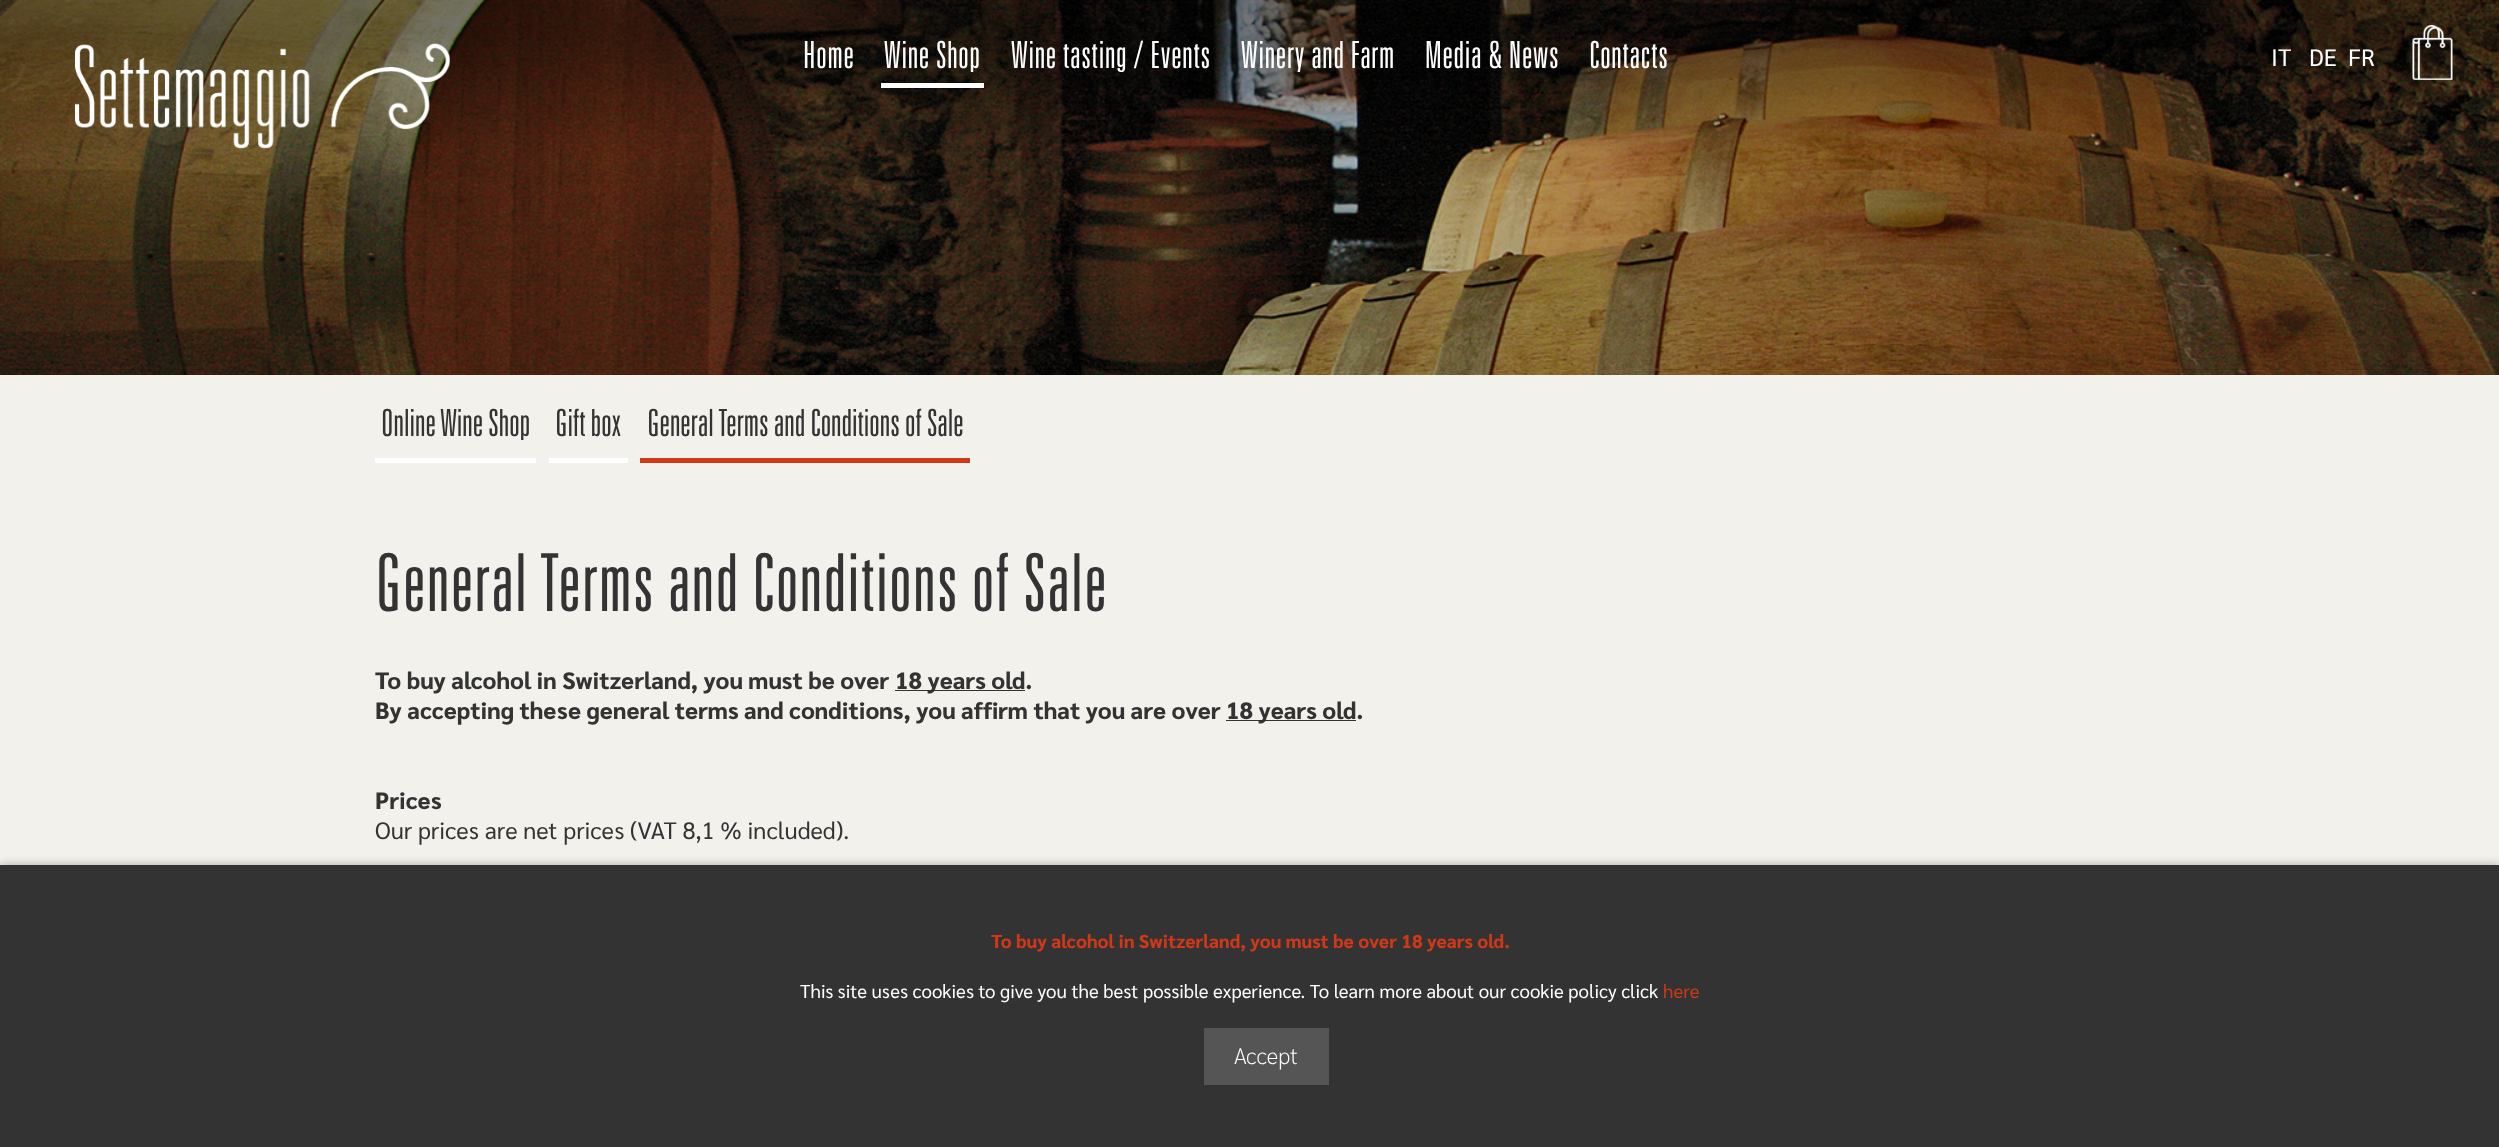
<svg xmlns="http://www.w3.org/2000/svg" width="2499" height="1147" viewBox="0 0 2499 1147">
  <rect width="100%" height="100%" fill="rgb(243,241,236)"/>
  <image x="0" y="0" width="2499" height="375" href="pic1.png"/>
  <image x="75" y="43" width="375" height="106" href="pic2.png"/>
  <text x="803" y="68" font-family="Univers" font-size="37.5" font-weight="300" letter-spacing="0.75" fill="rgb(255,255,255)">Home</text>
  <rect x="881" y="83" width="103" height="5" fill="rgb(255,255,255)"/>
  <g font-family="Univers" font-size="37.5" font-weight="300" letter-spacing="0.75" fill="rgb(255,255,255)">
    <text x="884" y="68">Wine Shop</text>
    <text x="1011" y="68">Wine tasting / Events</text>
    <text x="1241" y="68">Winery and Farm</text>
    <text x="1425" y="68">Media &amp; News</text>
    <text x="1589" y="68">Contacts</text>
  </g>
  <g font-family="Sarabun" font-size="23.75" fill="rgb(255,255,255)">
    <text x="2271" y="66">IT</text>
    <text x="2309" y="66">DE</text>
    <text x="2348" y="66">FR</text>
  </g>
  <image x="2412" y="25" width="41" height="55" href="pic3.png"/>
  <rect x="375" y="458" width="161" height="5" fill="rgb(255,255,255)"/>
  <text x="381" y="436" font-family="Univers" font-size="37.5" font-weight="300" fill="rgb(51,51,51)">Online Wine Shop</text>
  <rect x="549" y="458" width="79" height="5" fill="rgb(255,255,255)"/>
  <text x="555" y="436" font-family="Univers" font-size="37.5" font-weight="300" fill="rgb(51,51,51)">Gift box</text>
  <rect x="640" y="458" width="330" height="5" fill="rgb(208,56,25)"/>
  <text x="647" y="436" font-family="Univers" font-size="37.5" font-weight="300" fill="rgb(51,51,51)">General Terms and Conditions of Sale</text>
  <text x="375" y="611" font-family="Univers" font-size="80" font-weight="300" letter-spacing="1.6" fill="rgb(51,51,51)">General Terms and Conditions of Sale</text>
  <text x="375" y="689" font-family="Sarabun" font-size="23.75" font-weight="800" fill="rgb(51,51,51)">To buy alcohol in Switzerland, you must be over</text>
  <rect x="895" y="690" width="130" height="1" fill="rgb(51,51,51)"/>
  <g font-family="Sarabun" font-size="23.75" font-weight="800" fill="rgb(51,51,51)">
    <text x="895" y="689">18 years old.</text>
    <text x="375" y="719">By accepting these general terms and conditions, you affirm that you are over</text>
  </g>
  <rect x="1226" y="720" width="130" height="1" fill="rgb(51,51,51)"/>
  <g font-family="Sarabun" font-size="23.75" font-weight="800" fill="rgb(51,51,51)">
    <text x="1226" y="719">18 years old.</text>
    <text x="375" y="809">Prices</text>
  </g>
  <text x="375" y="839" font-family="Sarabun" font-size="23.75" fill="rgb(51,51,51)">Our prices are net prices (VAT 8,1 % included).</text>
  <rect x="0" y="865" width="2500" height="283" fill="rgba(0,0,0,0.3)" filter="blur(5px)"/>
  <rect x="0" y="865" width="2499" height="282" fill="rgb(51,51,51)"/>
  <text x="991" y="948" font-family="Sarabun" font-size="18.75" font-weight="800" fill="rgb(208,56,25)">To buy alcohol in Switzerland, you must be over 18 years old.</text>
  <text x="800" y="998" font-family="Sarabun" font-size="18.75" fill="rgb(255,255,255)">This site uses cookies to give you the best possible experience. To learn more about our cookie policy click</text>
  <text x="1663" y="998" font-family="Sarabun" font-size="18.75" fill="rgb(208,56,25)">here</text>
  <rect x="1204" y="1028" width="125" height="57" fill="rgb(85,85,85)"/>
  <text x="1234" y="1064" font-family="Sarabun" font-size="22.5" font-weight="200" fill="rgb(255,255,255)">Accept</text>
</svg>
